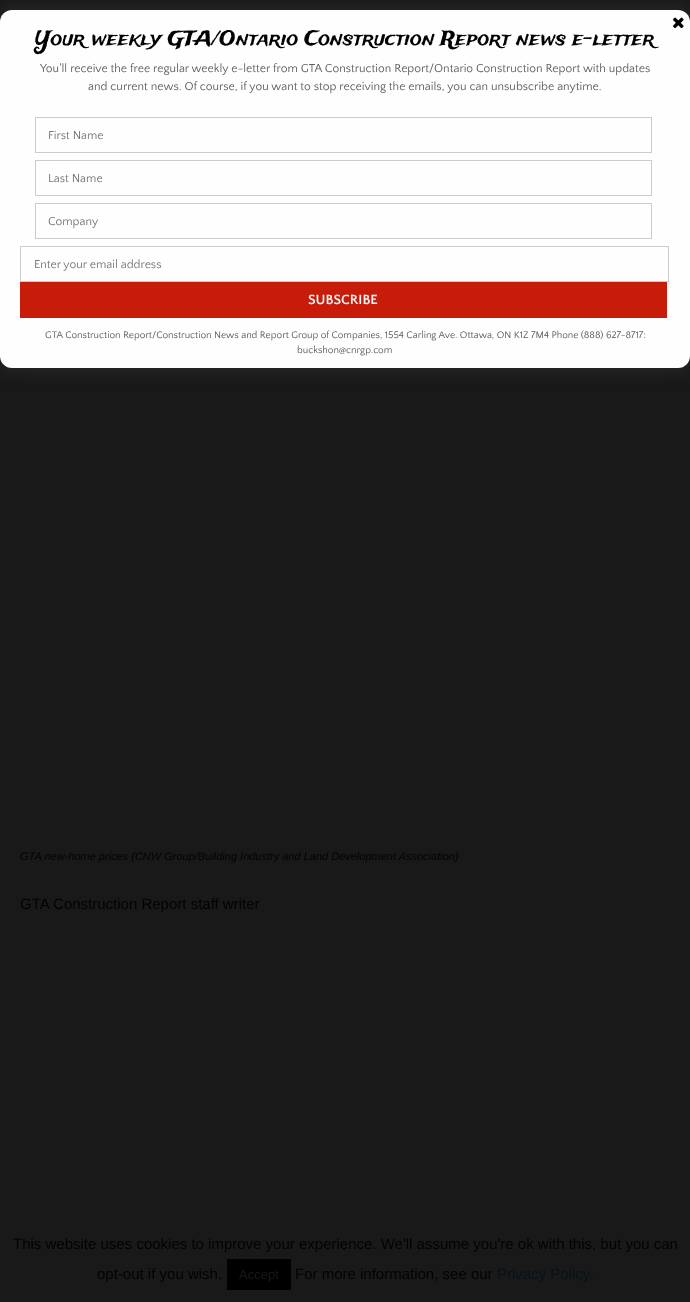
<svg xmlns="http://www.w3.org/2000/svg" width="690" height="1302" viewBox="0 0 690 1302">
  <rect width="100%" height="100%" fill="rgb(25,25,25)"/>
  <rect x="-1" y="9" width="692" height="360" rx="13" fill="rgba(50,50,50,0.69)" filter="blur(8.5px)"/>
  <rect x="0" y="10" width="690" height="358" rx="12" fill="rgb(254,254,254)"/>
  <image x="673" y="17" width="11" height="12" href="pic1.png"/>
  <text x="35" y="45" font-family="Trade Winds" font-size="20" fill="rgb(3,3,3)">Your weekly GTA/Ontario Construction Report news e-letter</text>
  <g font-family="Quattrocento Sans" font-size="12" fill="rgb(93,93,93)">
    <text x="40" y="72">You'll receive the free regular weekly e-letter from GTA Construction Report/Ontario Construction Report with updates</text>
    <text x="88" y="90">and current news. Of course, if you want to stop receiving the emails, you can unsubscribe anytime.</text>
  </g>
  <rect x="35.5" y="117.5" width="616" height="35" fill="none" stroke="rgb(204,204,204)"/>
  <text x="48" y="139" font-family="Quattrocento Sans" font-size="12" fill="rgb(117,117,117)">First Name</text>
  <rect x="35.5" y="160.5" width="616" height="35" fill="none" stroke="rgb(204,204,204)"/>
  <text x="48" y="182" font-family="Quattrocento Sans" font-size="12" fill="rgb(117,117,117)">Last Name</text>
  <rect x="35.5" y="203.5" width="616" height="35" fill="none" stroke="rgb(204,204,204)"/>
  <text x="48" y="225" font-family="Quattrocento Sans" font-size="12" fill="rgb(117,117,117)">Company</text>
  <rect x="20.5" y="246.5" width="648" height="35" fill="none" stroke="rgb(204,204,204)"/>
  <text x="34" y="268" font-family="Quattrocento Sans" font-size="12" fill="rgb(117,117,117)">Enter your email address</text>
  <rect x="20" y="282" width="647" height="36" fill="rgb(199,28,9)"/>
  <text x="308" y="304" font-family="Quattrocento Sans" font-size="14" font-weight="bold" fill="rgb(247,247,247)">SUBSCRIBE</text>
  <g font-family="Quattrocento Sans" font-size="10" fill="rgb(93,93,93)">
    <text x="45" y="338">GTA Construction Report/Construction News and Report Group of Companies, 1554 Carling Ave. Ottawa, ON K1Z 7M4 Phone (888) 627-8717:</text>
    <text x="297" y="353">buckshon@cnrgp.com</text>
  </g>
  <text x="20" y="860" font-family="Liberation Sans" font-size="11" font-style="italic" fill="rgb(3,3,3)">GTA new-home prices (CNW Group/Building Industry and Land Development Association)</text>
  <g font-family="Liberation Sans" font-size="15" fill="rgb(3,3,3)">
    <text x="20" y="909">GTA Construction Report staff writer</text>
    <text x="13" y="1249">This website uses cookies to improve your experience. We'll assume you're ok with this, but you can</text>
    <text x="97" y="1279">opt-out if you wish.</text>
  </g>
  <rect x="227" y="1259" width="64" height="31" fill="rgb(0,0,0)"/>
  <text x="239" y="1279" font-family="Liberation Sans" font-size="13" fill="rgb(25,25,25)">Accept</text>
  <text x="295" y="1279" font-family="Liberation Sans" font-size="15" fill="rgb(3,3,3)">For more information, see our</text>
  <text x="497" y="1279" font-family="Liberation Sans" font-size="15" fill="rgb(8,18,24)">Privacy Policy.</text>
</svg>
